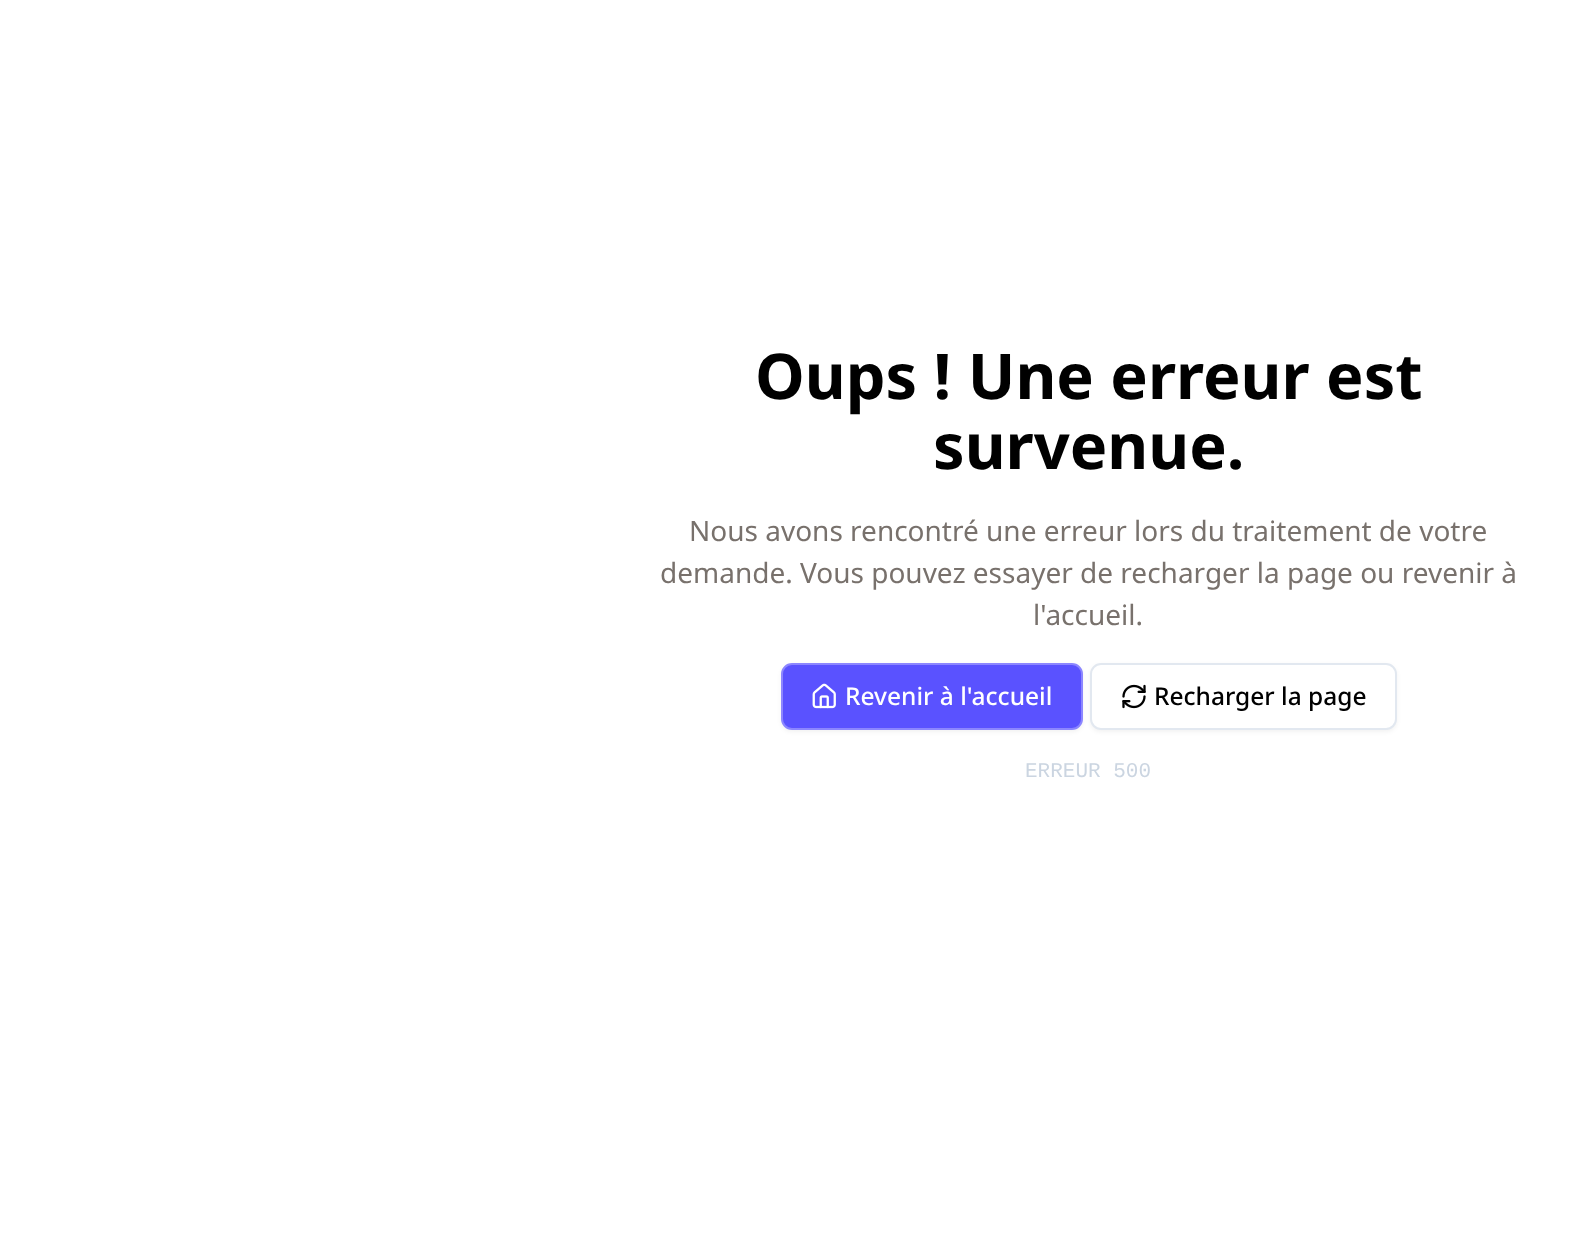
<svg xmlns="http://www.w3.org/2000/svg" width="1592" height="1238" viewBox="0 0 1592 1238">
  <rect width="100%" height="100%" fill="rgb(255,255,255)"/>
  <g font-family="Noto Sans" font-size="63" font-weight="bold" fill="rgb(0,0,0)">
    <text x="755" y="399">Oups ! Une erreur est</text>
    <text x="933" y="469">survenue.</text>
  </g>
  <g font-family="Noto Sans" font-size="28" fill="rgb(120,113,108)">
    <text x="689" y="541">Nous avons rencontré une erreur lors du traitement de votre</text>
    <text x="660" y="583">demande. Vous pouvez essayer de recharger la page ou revenir à</text>
    <text x="1033" y="625">l'accueil.</text>
  </g>
  <rect x="781" y="665" width="302" height="67" rx="11" fill="rgba(0,0,0,0.05)" filter="blur(2px)"/>
  <rect x="782" y="664" width="300" height="65" rx="10" fill="rgb(90,82,255)" stroke="rgb(140,134,255)" stroke-width="2"/>
  <image x="812" y="683" width="24" height="26" href="pic1.png"/>
  <text x="845" y="705" font-family="Noto Sans" font-size="24.5" font-weight="500" fill="rgb(255,255,255)">Revenir à l'accueil</text>
  <rect x="1090" y="665" width="307" height="67" rx="11" fill="rgba(0,0,0,0.05)" filter="blur(2px)"/>
  <rect x="1091" y="664" width="305" height="65" rx="10" fill="rgb(255,255,255)" stroke="rgb(226,232,240)" stroke-width="2"/>
  <image x="1122" y="684" width="24" height="25" href="pic2.png"/>
  <text x="1154" y="705" font-family="Noto Sans" font-size="24.5" font-weight="500" fill="rgb(0,0,0)">Recharger la page</text>
  <text x="1025" y="777" font-family="Liberation Mono" font-size="21" fill="rgb(203,213,225)">ERREUR 500</text>
</svg>
